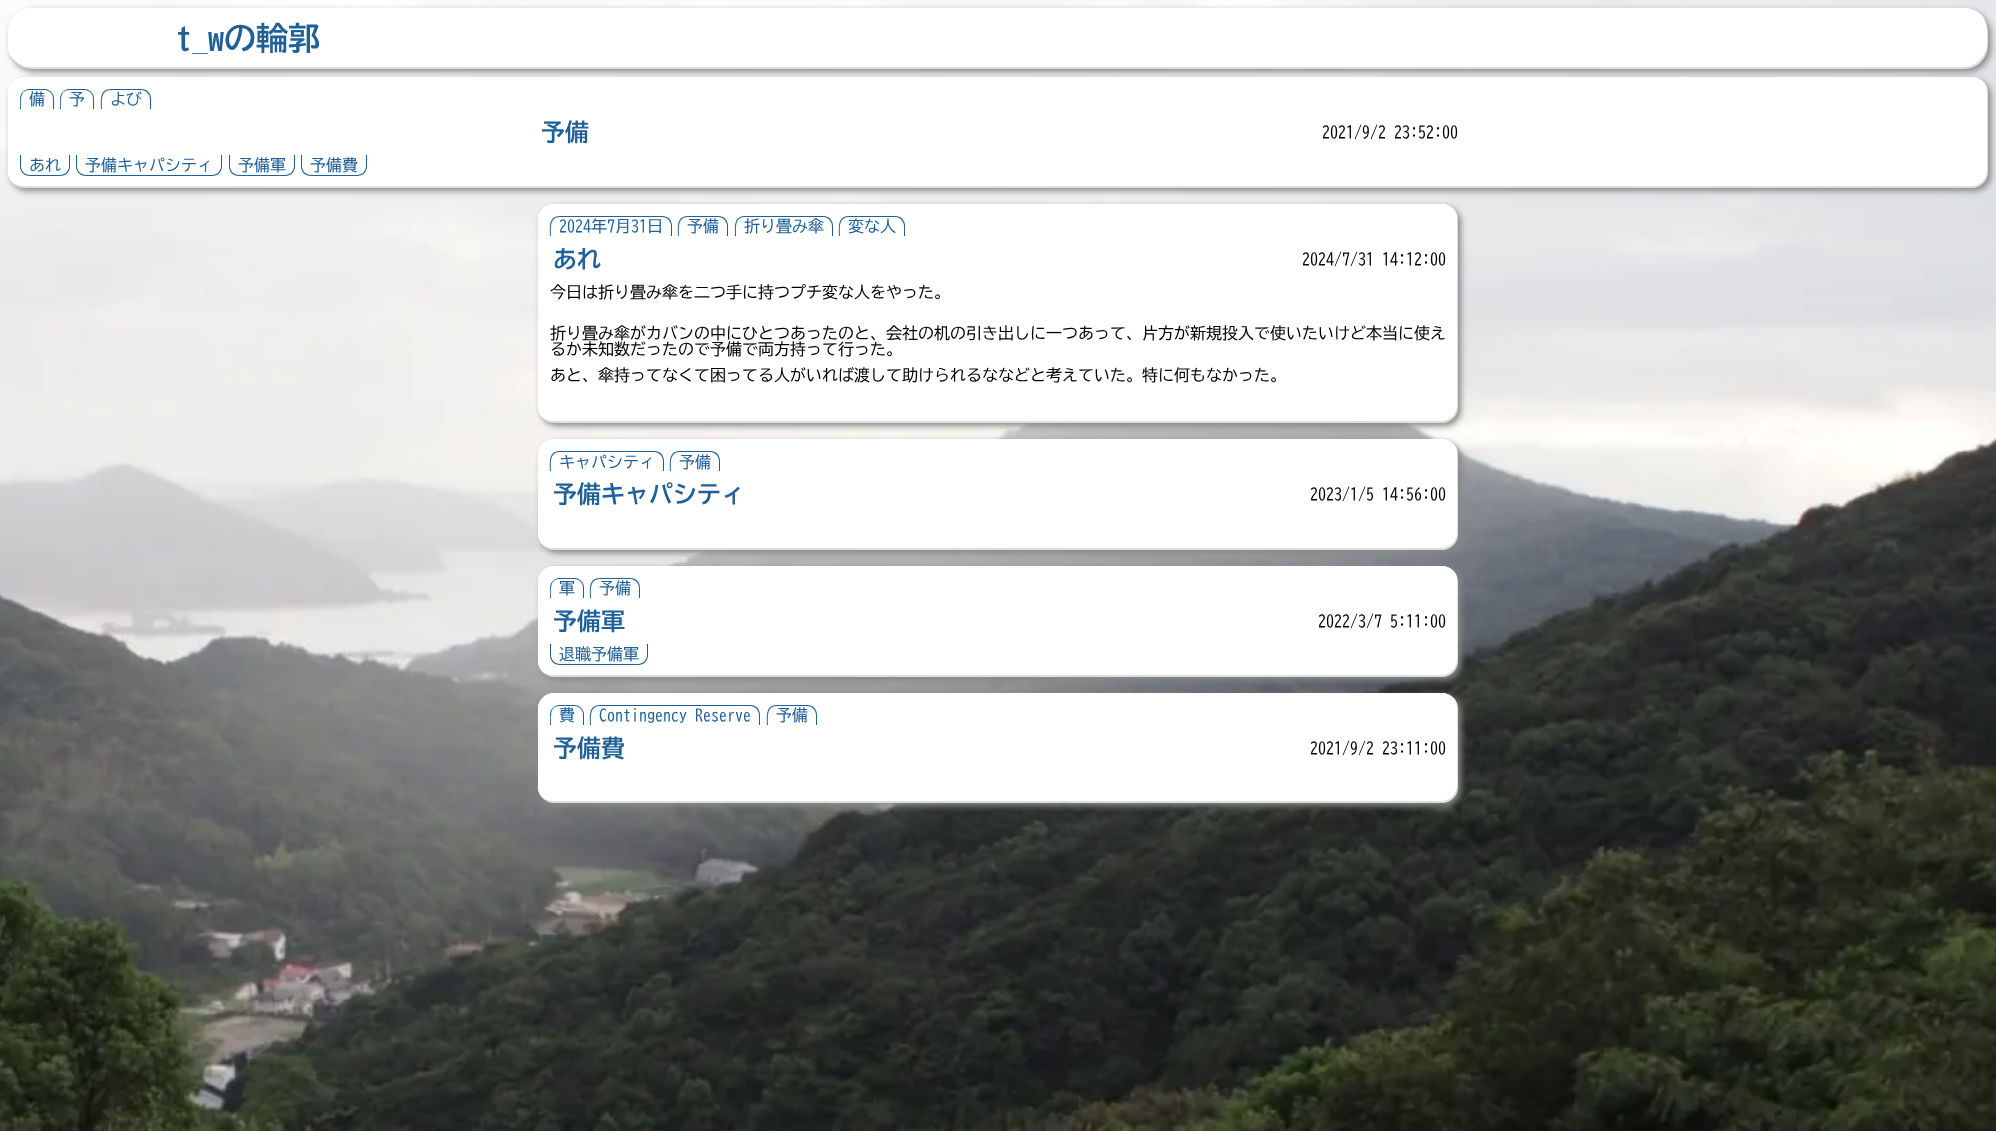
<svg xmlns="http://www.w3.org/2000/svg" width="1996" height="1131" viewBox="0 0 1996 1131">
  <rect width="100%" height="100%" fill="rgb(255,255,255)"/>
  <image x="0" y="0" width="1996" height="1131" href="pic1.png"/>
  <rect x="11" y="11" width="1980" height="61" rx="24" fill="rgb(136,136,136)" filter="blur(3px)"/>
  <rect x="8" y="8" width="1980" height="61" rx="24" fill="rgb(255,255,255)"/>
  <path d="M10 56C14 64 23 69 32 69H1964C1977 69 1988 58 1988 45V32C1988 27 1987 23 1984 19C1986 23 1987 26 1987 30V43C1987 56 1976 67 1963 67H31C22 67 15 62 10 56Z" fill="rgba(0,0,0,0.13)"/>
  <path d="M33 10H1965C1974 10 1981 15 1986 21C1982 13 1973 8 1964 8H32C19 8 8 19 8 32V45C8 50 9 54 12 58C10 54 9 51 9 47V34C9 21 20 10 33 10Z" fill="rgb(255,255,255)"/>
  <text x="176" y="50" font-family="BIZ UDGothic" font-size="32" font-weight="bold" fill="rgb(31,96,153)">t_wの輪郭</text>
  <rect x="11" y="80" width="1980" height="111" rx="16" fill="rgb(136,136,136)" filter="blur(3px)"/>
  <rect x="8" y="77" width="1980" height="111" rx="16" fill="rgb(255,255,255)"/>
  <path d="M9 179C12 184 18 188 24 188H1972C1981 188 1988 181 1988 172V93C1988 90 1987 87 1986 85C1987 87 1987 89 1987 91V170C1987 179 1980 186 1971 186H23C17 186 12 183 9 179Z" fill="rgba(0,0,0,0.13)"/>
  <path d="M25 79H1973C1979 79 1984 82 1987 86C1984 81 1978 77 1972 77H24C15 77 8 84 8 93V172C8 175 9 178 10 180C9 178 9 176 9 174V95C9 86 16 79 25 79Z" fill="rgb(255,255,255)"/>
  <path d="M29.5 89H44.5C49.5 89 54 93.5 54 98.5V109H20V98.5C20 93.5 24.5 89 29.5 89ZM29.5 90H44.5C49 90 53 94 53 98.5V109H21C21 102 19 90 29.5 90Z" fill="rgb(31,96,153)" fill-rule="evenodd"/>
  <text x="29" y="105" font-family="BIZ UDGothic" font-size="16" fill="rgb(31,96,153)">備</text>
  <path d="M69.5 89H84.5C89.5 89 94 93.5 94 98.5V109H60V98.5C60 93.5 64.5 89 69.5 89ZM69.5 90H84.5C89 90 93 94 93 98.5V109H61C61 102 59 90 69.5 90Z" fill="rgb(31,96,153)" fill-rule="evenodd"/>
  <text x="69" y="105" font-family="BIZ UDGothic" font-size="16" fill="rgb(31,96,153)">予</text>
  <path d="M111 89H141C147 89 151 93 151 99V109H101C101 101 99 89 111 89ZM111 90H141C146 90 150 94 150 99V109H102C102 102 100 90 111 90Z" fill="rgb(31,96,153)" fill-rule="evenodd"/>
  <text x="110" y="105" font-family="BIZ UDGothic" font-size="16" fill="rgb(31,96,153)">よび</text>
  <text x="541" y="141" font-family="BIZ UDGothic" font-size="24" font-weight="bold" fill="rgb(31,96,153)">予備</text>
  <text x="1322" y="138" font-family="BIZ UDGothic" font-size="16" fill="rgb(0,0,0)">2021/9/2 23:52:00</text>
  <path d="M20 155H70V166C70 172 66 176 60 176H30C24 176 20 172 20 166ZM21 155H69V166C69 171 65 175 60 175H30C25 175 21 171 21 166Z" fill="rgb(31,96,153)" fill-rule="evenodd"/>
  <text x="29" y="171" font-family="BIZ UDGothic" font-size="16" fill="rgb(31,96,153)">あれ</text>
  <path d="M76 155H222V166C222 172 218 176 212 176H86C80 176 76 172 76 166ZM77 155H221V166C221 171 217 175 212 175H86C81 175 77 171 77 166Z" fill="rgb(31,96,153)" fill-rule="evenodd"/>
  <text x="85" y="171" font-family="BIZ UDGothic" font-size="16" fill="rgb(31,96,153)">予備キャパシティ</text>
  <path d="M229 155H295V166C295 172 291 176 285 176H239C233 176 229 172 229 166ZM230 155H294V166C294 171 290 175 285 175H239C234 175 230 171 230 166Z" fill="rgb(31,96,153)" fill-rule="evenodd"/>
  <text x="238" y="171" font-family="BIZ UDGothic" font-size="16" fill="rgb(31,96,153)">予備軍</text>
  <path d="M301 155H367V166C367 172 363 176 357 176H311C305 176 301 172 301 166ZM302 155H366V166C366 171 362 175 357 175H311C306 175 302 171 302 166Z" fill="rgb(31,96,153)" fill-rule="evenodd"/>
  <text x="310" y="171" font-family="BIZ UDGothic" font-size="16" fill="rgb(31,96,153)">予備費</text>
  <rect x="541" y="207" width="920" height="219" rx="16" fill="rgb(136,136,136)" filter="blur(3px)"/>
  <rect x="538" y="204" width="920" height="219" rx="16" fill="rgb(255,255,255)"/>
  <path d="M539 414C542 419 548 423 554 423H1442C1451 423 1458 416 1458 407V220C1458 217 1457 214 1456 212C1457 214 1457 216 1457 218V405C1457 414 1450 421 1441 421H553C547 421 542 418 539 414Z" fill="rgba(0,0,0,0.13)"/>
  <path d="M555 206H1443C1449 206 1454 209 1457 213C1454 208 1448 204 1442 204H554C545 204 538 211 538 220V407C538 410 539 413 540 415C539 413 539 411 539 409V222C539 213 546 206 555 206Z" fill="rgb(255,255,255)"/>
  <path d="M560 216H662C668 216 672 220 672 226V236H550C550 228 548 216 560 216ZM560 217H662C667 217 671 221 671 226V236H551C551 229 549 217 560 217Z" fill="rgb(31,96,153)" fill-rule="evenodd"/>
  <text x="559" y="232" font-family="BIZ UDGothic" font-size="16" fill="rgb(31,96,153)">2024年7月31日</text>
  <path d="M688 216H718C724 216 728 220 728 226V236H678C678 228 676 216 688 216ZM688 217H718C723 217 727 221 727 226V236H679C679 229 677 217 688 217Z" fill="rgb(31,96,153)" fill-rule="evenodd"/>
  <text x="687" y="232" font-family="BIZ UDGothic" font-size="16" fill="rgb(31,96,153)">予備</text>
  <path d="M745 216H823C829 216 833 220 833 226V236H735C735 228 733 216 745 216ZM745 217H823C828 217 832 221 832 226V236H736C736 229 734 217 745 217Z" fill="rgb(31,96,153)" fill-rule="evenodd"/>
  <text x="744" y="232" font-family="BIZ UDGothic" font-size="16" fill="rgb(31,96,153)">折り畳み傘</text>
  <path d="M849 216H895C901 216 905 220 905 226V236H839C839 228 837 216 849 216ZM849 217H895C900 217 904 221 904 226V236H840C840 229 838 217 849 217Z" fill="rgb(31,96,153)" fill-rule="evenodd"/>
  <text x="848" y="232" font-family="BIZ UDGothic" font-size="16" fill="rgb(31,96,153)">変な人</text>
  <text x="553" y="268" font-family="BIZ UDGothic" font-size="24" font-weight="bold" fill="rgb(31,96,153)">あれ</text>
  <g font-family="BIZ UDGothic" font-size="16" fill="rgb(0,0,0)">
    <text x="1302" y="265">2024/7/31 14:12:00</text>
    <text x="550" y="298">今日は折り畳み傘を二つ手に持つプチ変な人をやった。</text>
    <text>
      <tspan x="550" y="339">折り畳み傘がカバンの中にひとつあったのと、会社の机の引き出しに一つあって、片方が新規投入で使いたいけど本当に使え</tspan>
      <tspan x="550" y="355">るか未知数だったので予備で両方持って行った。</tspan>
      <tspan x="550" y="381">あと、傘持ってなくて困ってる人がいれば渡して助けられるななどと考えていた。特に何もなかった。</tspan>
    </text>
  </g>
  <rect x="541" y="442" width="920" height="111" rx="16" fill="rgb(136,136,136)" filter="blur(3px)"/>
  <rect x="538" y="439" width="920" height="111" rx="16" fill="rgb(255,255,255)"/>
  <path d="M539 541C542 546 548 550 554 550H1442C1451 550 1458 543 1458 534V455C1458 452 1457 449 1456 447C1457 449 1457 451 1457 453V532C1457 541 1450 548 1441 548H553C547 548 542 545 539 541Z" fill="rgba(0,0,0,0.13)"/>
  <path d="M555 441H1443C1449 441 1454 444 1457 448C1454 443 1448 439 1442 439H554C545 439 538 446 538 455V534C538 537 539 540 540 542C539 540 539 538 539 536V457C539 448 546 441 555 441Z" fill="rgb(255,255,255)"/>
  <path d="M560 451H654C660 451 664 455 664 461V471H550C550 463 548 451 560 451ZM560 452H654C659 452 663 456 663 461V471H551C551 464 549 452 560 452Z" fill="rgb(31,96,153)" fill-rule="evenodd"/>
  <text x="559" y="468" font-family="BIZ UDGothic" font-size="16" fill="rgb(31,96,153)">キャパシティ</text>
  <path d="M680 451H710C716 451 720 455 720 461V471H670C670 463 668 451 680 451ZM680 452H710C715 452 719 456 719 461V471H671C671 464 669 452 680 452Z" fill="rgb(31,96,153)" fill-rule="evenodd"/>
  <text x="679" y="468" font-family="BIZ UDGothic" font-size="16" fill="rgb(31,96,153)">予備</text>
  <text x="553" y="503" font-family="BIZ UDGothic" font-size="24" font-weight="bold" fill="rgb(31,96,153)">予備キャパシティ</text>
  <text x="1310" y="500" font-family="BIZ UDGothic" font-size="16" fill="rgb(0,0,0)">2023/1/5 14:56:00</text>
  <rect x="541" y="569" width="920" height="111" rx="16" fill="rgb(136,136,136)" filter="blur(3px)"/>
  <rect x="538" y="566" width="920" height="111" rx="16" fill="rgb(255,255,255)"/>
  <path d="M539 668C542 673 548 677 554 677H1442C1451 677 1458 670 1458 661V582C1458 579 1457 576 1456 574C1457 576 1457 578 1457 580V659C1457 668 1450 675 1441 675H553C547 675 542 672 539 668Z" fill="rgba(0,0,0,0.13)"/>
  <path d="M555 568H1443C1449 568 1454 571 1457 575C1454 570 1448 566 1442 566H554C545 566 538 573 538 582V661C538 664 539 667 540 669C539 667 539 665 539 663V584C539 575 546 568 555 568Z" fill="rgb(255,255,255)"/>
  <path d="M559.5 578H574.5C579.5 578 584 582.5 584 587.5V598H550V587.5C550 582.5 554.5 578 559.5 578ZM559.5 579H574.5C579 579 583 583 583 587.5V598H551C551 591 549 579 559.5 579Z" fill="rgb(31,96,153)" fill-rule="evenodd"/>
  <text x="559" y="594" font-family="BIZ UDGothic" font-size="16" fill="rgb(31,96,153)">軍</text>
  <path d="M600 578H630C636 578 640 582 640 588V598H590C590 590 588 578 600 578ZM600 579H630C635 579 639 583 639 588V598H591C591 591 589 579 600 579Z" fill="rgb(31,96,153)" fill-rule="evenodd"/>
  <text x="599" y="594" font-family="BIZ UDGothic" font-size="16" fill="rgb(31,96,153)">予備</text>
  <text x="553" y="630" font-family="BIZ UDGothic" font-size="24" font-weight="bold" fill="rgb(31,96,153)">予備軍</text>
  <text x="1318" y="627" font-family="BIZ UDGothic" font-size="16" fill="rgb(0,0,0)">2022/3/7 5:11:00</text>
  <path d="M550 644H648V655C648 661 644 665 638 665H560C554 665 550 661 550 655ZM551 644H647V655C647 660 643 664 638 664H560C555 664 551 660 551 655Z" fill="rgb(31,96,153)" fill-rule="evenodd"/>
  <text x="559" y="660" font-family="BIZ UDGothic" font-size="16" fill="rgb(31,96,153)">退職予備軍</text>
  <rect x="541" y="696" width="920" height="110" rx="16" fill="rgb(136,136,136)" filter="blur(3px)"/>
  <rect x="538" y="693" width="920" height="110" rx="16" fill="rgb(255,255,255)"/>
  <path d="M539 794C542 799 548 803 554 803H1442C1451 803 1458 796 1458 787V709C1458 706 1457 703 1456 701C1457 703 1457 705 1457 707V785C1457 794 1450 801 1441 801H553C547 801 542 798 539 794Z" fill="rgba(0,0,0,0.13)"/>
  <path d="M555 695H1443C1449 695 1454 698 1457 702C1454 697 1448 693 1442 693H554C545 693 538 700 538 709V787C538 790 539 793 540 795C539 793 539 791 539 789V711C539 702 546 695 555 695Z" fill="rgb(255,255,255)"/>
  <path d="M559.5 705H574.5C579.5 705 584 709.5 584 714.5V725H550V714.5C550 709.5 554.5 705 559.5 705ZM559.5 706H574.5C579 706 583 710 583 714.5V725H551C551 718 549 706 559.5 706Z" fill="rgb(31,96,153)" fill-rule="evenodd"/>
  <text x="559" y="721" font-family="BIZ UDGothic" font-size="16" fill="rgb(31,96,153)">費</text>
  <path d="M600 705H750C756 705 760 709 760 715V725H590C590 717 588 705 600 705ZM600 706H750C755 706 759 710 759 715V725H591C591 718 589 706 600 706Z" fill="rgb(31,96,153)" fill-rule="evenodd"/>
  <text x="599" y="721" font-family="BIZ UDGothic" font-size="16" fill="rgb(31,96,153)">Contingency Reserve</text>
  <path d="M777 705H807C813 705 817 709 817 715V725H767C767 717 765 705 777 705ZM777 706H807C812 706 816 710 816 715V725H768C768 718 766 706 777 706Z" fill="rgb(31,96,153)" fill-rule="evenodd"/>
  <text x="776" y="721" font-family="BIZ UDGothic" font-size="16" fill="rgb(31,96,153)">予備</text>
  <text x="553" y="757" font-family="BIZ UDGothic" font-size="24" font-weight="bold" fill="rgb(31,96,153)">予備費</text>
  <text x="1310" y="754" font-family="BIZ UDGothic" font-size="16" fill="rgb(0,0,0)">2021/9/2 23:11:00</text>
</svg>
